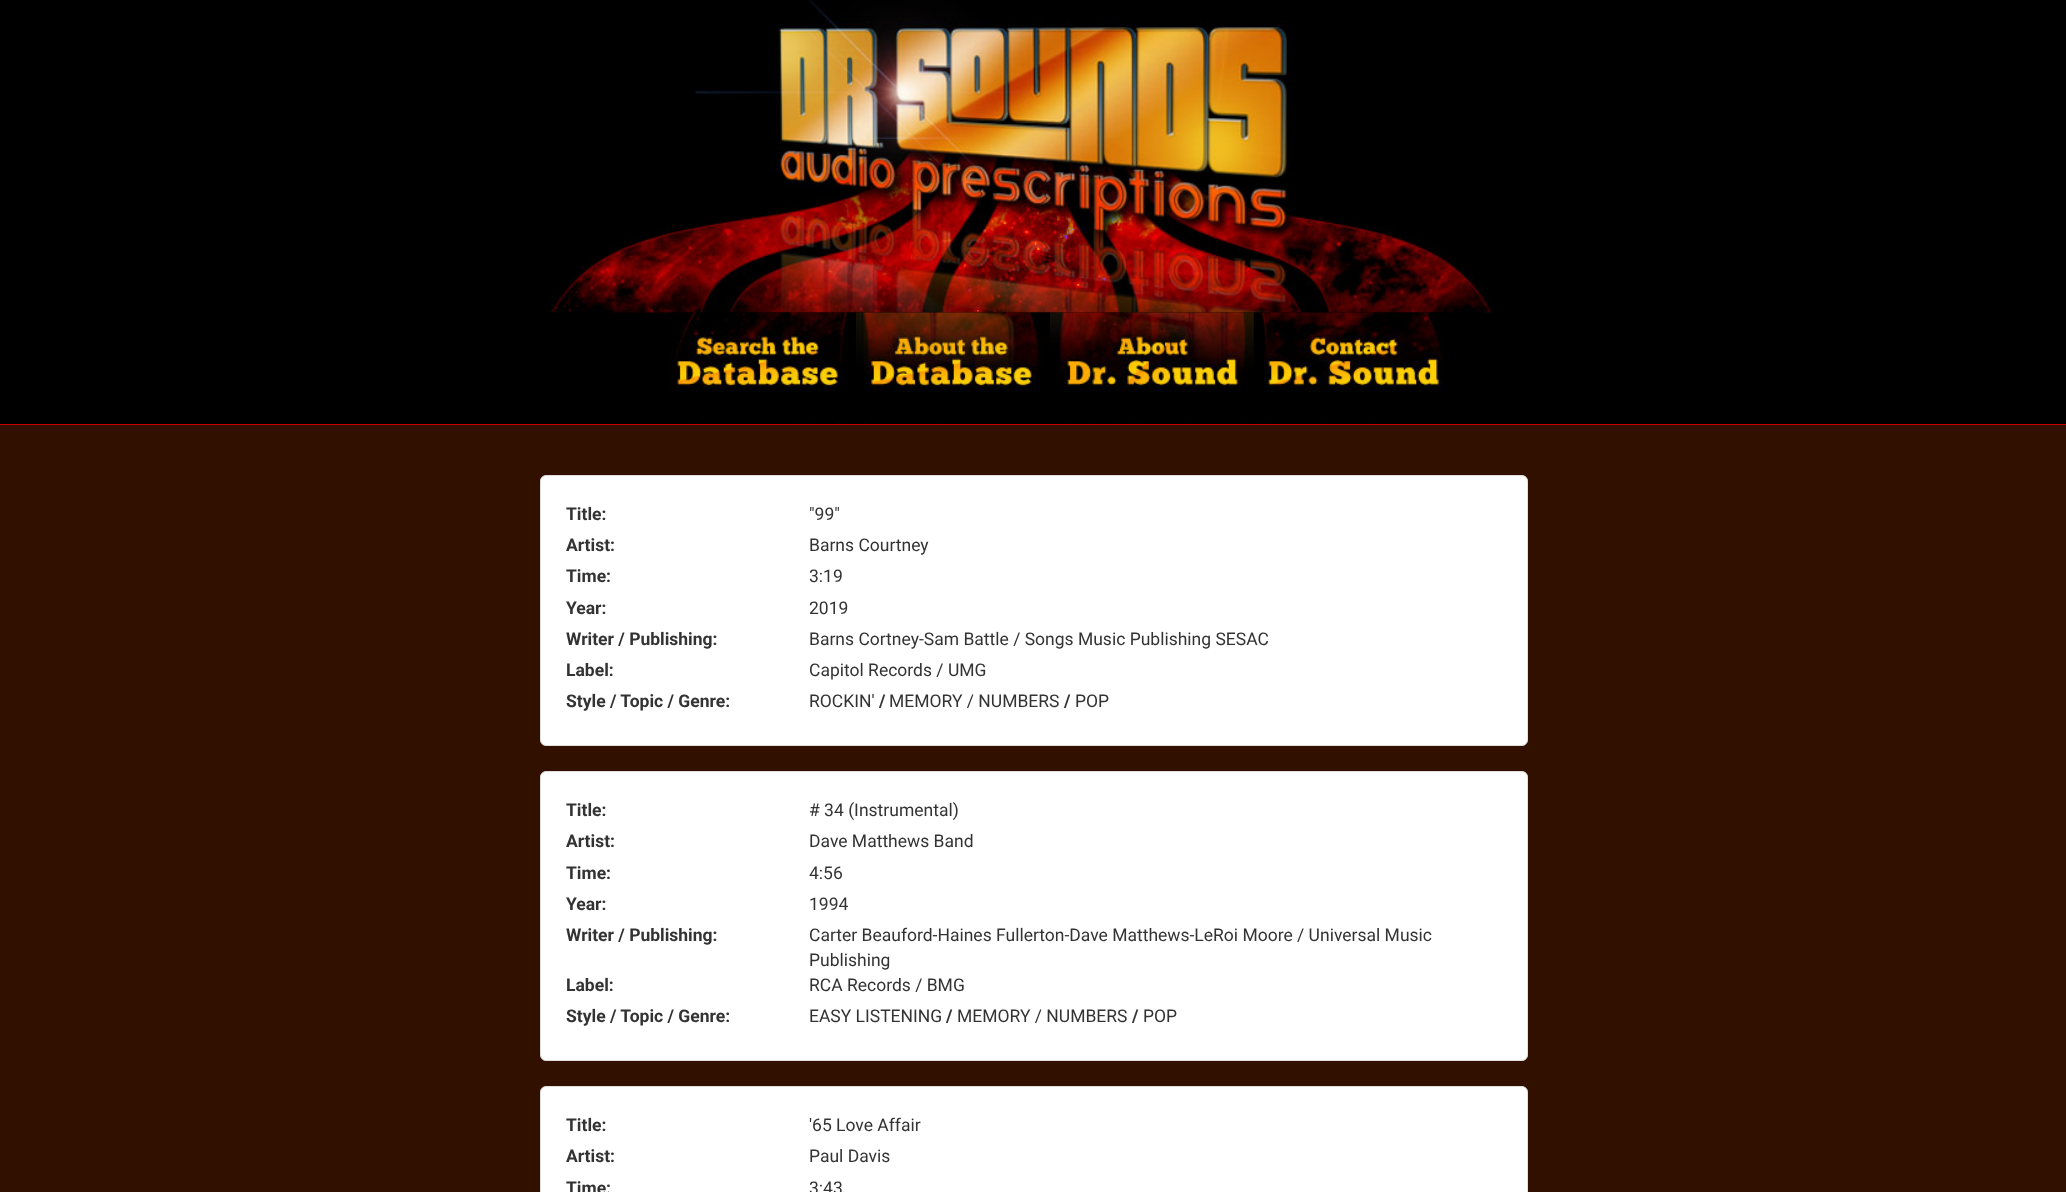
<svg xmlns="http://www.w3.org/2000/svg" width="2066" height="1192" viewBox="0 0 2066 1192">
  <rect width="100%" height="100%" fill="rgb(0,0,0)"/>
  <rect x="0" y="424" width="2066" height="1" fill="rgb(200,0,0)"/>
  <image x="550" y="0" width="943" height="313" href="pic1.png"/>
  <image x="669" y="312" width="189" height="112" href="pic2.png"/>
  <image x="856" y="312" width="194" height="112" href="pic3.png"/>
  <image x="1050" y="312" width="205" height="112" href="pic4.png"/>
  <image x="1253" y="312" width="191" height="112" href="pic5.png"/>
  <rect x="0" y="425" width="2066" height="767" fill="rgb(49,16,0)"/>
  <rect x="540.5" y="475.5" width="987" height="270" rx="5.5" fill="rgb(255,255,255)" stroke="rgb(222,222,222)"/>
  <text x="566" y="520" font-family="Roboto" font-size="17.5" font-weight="bold" fill="rgb(51,51,51)">Title:</text>
  <text x="809" y="520" font-family="Roboto" font-size="17.5" fill="rgb(51,51,51)">"99"</text>
  <text x="566" y="551" font-family="Roboto" font-size="17.5" font-weight="bold" fill="rgb(51,51,51)">Artist:</text>
  <text x="809" y="551" font-family="Roboto" font-size="17.5" fill="rgb(51,51,51)">Barns Courtney</text>
  <text x="566" y="582" font-family="Roboto" font-size="17.5" font-weight="bold" fill="rgb(51,51,51)">Time:</text>
  <text x="809" y="582" font-family="Roboto" font-size="17.5" fill="rgb(51,51,51)">3:19</text>
  <text x="566" y="614" font-family="Roboto" font-size="17.5" font-weight="bold" fill="rgb(51,51,51)">Year:</text>
  <text x="809" y="614" font-family="Roboto" font-size="17.5" fill="rgb(51,51,51)">2019</text>
  <text x="566" y="645" font-family="Roboto" font-size="17.5" font-weight="bold" fill="rgb(51,51,51)">Writer / Publishing:</text>
  <text x="809" y="645" font-family="Roboto" font-size="17.5" fill="rgb(51,51,51)">Barns Cortney-Sam Battle / Songs Music Publishing SESAC</text>
  <text x="566" y="676" font-family="Roboto" font-size="17.5" font-weight="bold" fill="rgb(51,51,51)">Label:</text>
  <text x="809" y="676" font-family="Roboto" font-size="17.5" fill="rgb(51,51,51)">Capitol Records / UMG</text>
  <text x="566" y="707" font-family="Roboto" font-size="17.5" font-weight="bold" fill="rgb(51,51,51)">Style / Topic / Genre:</text>
  <text x="809" y="707" font-family="Roboto" font-size="17.5" fill="rgb(51,51,51)">ROCKIN'</text>
  <text x="879" y="707" font-family="Roboto" font-size="17.5" font-weight="bold" fill="rgb(51,51,51)">/</text>
  <text x="889" y="707" font-family="Roboto" font-size="17.5" fill="rgb(51,51,51)">MEMORY / NUMBERS</text>
  <text x="1064" y="707" font-family="Roboto" font-size="17.5" font-weight="bold" fill="rgb(51,51,51)">/</text>
  <text x="1075" y="707" font-family="Roboto" font-size="17.5" fill="rgb(51,51,51)">POP</text>
  <rect x="540.5" y="771.5" width="987" height="289" rx="5.5" fill="rgb(255,255,255)" stroke="rgb(222,222,222)"/>
  <text x="566" y="816" font-family="Roboto" font-size="17.5" font-weight="bold" fill="rgb(51,51,51)">Title:</text>
  <text x="809" y="816" font-family="Roboto" font-size="17.5" fill="rgb(51,51,51)"># 34 (Instrumental)</text>
  <text x="566" y="847" font-family="Roboto" font-size="17.5" font-weight="bold" fill="rgb(51,51,51)">Artist:</text>
  <text x="809" y="847" font-family="Roboto" font-size="17.5" fill="rgb(51,51,51)">Dave Matthews Band</text>
  <text x="566" y="879" font-family="Roboto" font-size="17.5" font-weight="bold" fill="rgb(51,51,51)">Time:</text>
  <text x="809" y="879" font-family="Roboto" font-size="17.5" fill="rgb(51,51,51)">4:56</text>
  <text x="566" y="910" font-family="Roboto" font-size="17.5" font-weight="bold" fill="rgb(51,51,51)">Year:</text>
  <text x="809" y="910" font-family="Roboto" font-size="17.5" fill="rgb(51,51,51)">1994</text>
  <text x="566" y="941" font-family="Roboto" font-size="17.5" font-weight="bold" fill="rgb(51,51,51)">Writer / Publishing:</text>
  <g font-family="Roboto" font-size="17.5" fill="rgb(51,51,51)">
    <text>
      <tspan x="809" y="941">Carter Beauford-Haines Fullerton-Dave Matthews-LeRoi Moore / Universal Music</tspan>
      <tspan x="809" y="966">Publishing</tspan>
    </text>
  </g>
  <text x="566" y="991" font-family="Roboto" font-size="17.5" font-weight="bold" fill="rgb(51,51,51)">Label:</text>
  <text x="809" y="991" font-family="Roboto" font-size="17.5" fill="rgb(51,51,51)">RCA Records / BMG</text>
  <text x="566" y="1022" font-family="Roboto" font-size="17.5" font-weight="bold" fill="rgb(51,51,51)">Style / Topic / Genre:</text>
  <text x="809" y="1022" font-family="Roboto" font-size="17.5" fill="rgb(51,51,51)">EASY LISTENING</text>
  <text x="946" y="1022" font-family="Roboto" font-size="17.5" font-weight="bold" fill="rgb(51,51,51)">/</text>
  <text x="957" y="1022" font-family="Roboto" font-size="17.5" fill="rgb(51,51,51)">MEMORY / NUMBERS</text>
  <text x="1132" y="1022" font-family="Roboto" font-size="17.5" font-weight="bold" fill="rgb(51,51,51)">/</text>
  <text x="1143" y="1022" font-family="Roboto" font-size="17.5" fill="rgb(51,51,51)">POP</text>
  <rect x="540.5" y="1086.5" width="987" height="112" rx="5.5" fill="rgb(255,255,255)" stroke="rgb(222,222,222)"/>
  <text x="566" y="1131" font-family="Roboto" font-size="17.5" font-weight="bold" fill="rgb(51,51,51)">Title:</text>
  <text x="809" y="1131" font-family="Roboto" font-size="17.5" fill="rgb(51,51,51)">'65 Love Affair</text>
  <text x="566" y="1162" font-family="Roboto" font-size="17.5" font-weight="bold" fill="rgb(51,51,51)">Artist:</text>
  <text x="809" y="1162" font-family="Roboto" font-size="17.5" fill="rgb(51,51,51)">Paul Davis</text>
  <text x="566" y="1194" font-family="Roboto" font-size="17.5" font-weight="bold" fill="rgb(51,51,51)">Time:</text>
  <text x="809" y="1194" font-family="Roboto" font-size="17.5" fill="rgb(51,51,51)">3:43</text>
</svg>
